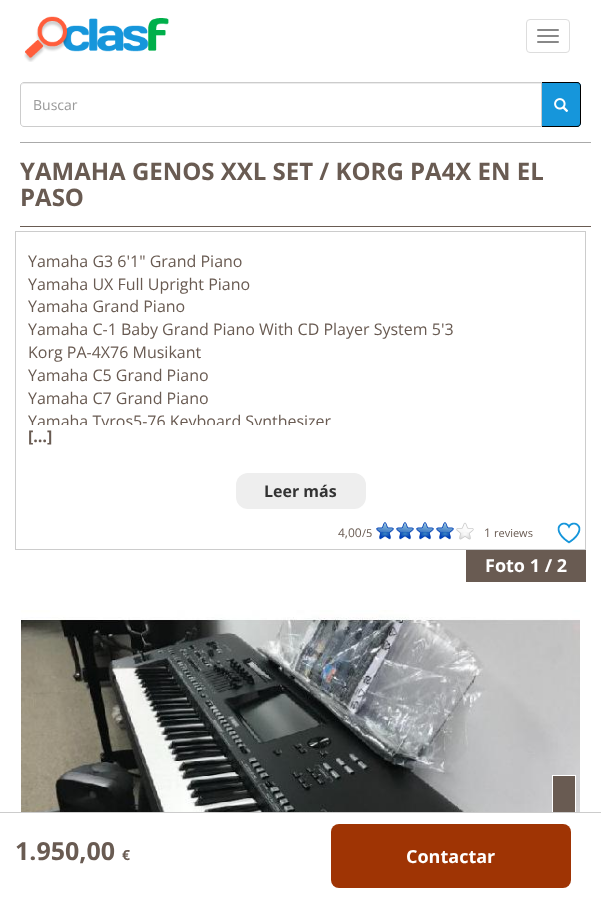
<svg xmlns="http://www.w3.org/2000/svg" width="601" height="899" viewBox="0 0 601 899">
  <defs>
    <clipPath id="clip1"><rect x="28" y="250" width="545" height="175"/></clipPath>
  </defs>
  <rect width="100%" height="100%" fill="rgb(255,255,255)"/>
  <image x="24" y="16" width="145" height="46" href="pic1.png"/>
  <rect x="526.5" y="19.5" width="43" height="33" rx="3.5" fill="none" stroke="rgb(221,221,221)"/>
  <rect x="537" y="29" width="22" height="2" rx="1" fill="rgb(136,136,136)"/>
  <rect x="537" y="35" width="22" height="2" rx="1" fill="rgb(136,136,136)"/>
  <rect x="537" y="41" width="22" height="2" rx="1" fill="rgb(136,136,136)"/>
  <path d="M24 84H541V83H24C22 83 21 85 21 87C21 85 22 84 24 84Z" fill="rgb(236,236,236)"/>
  <path d="M24 82.5H541.5V126.5H24C22 126.5 20.5 125 20.5 123V86C20.5 84 22 82.5 24 82.5Z" fill="none" stroke="rgb(204,204,204)"/>
  <text x="33" y="110" font-family="Open Sans" font-size="14" fill="rgb(153,153,153)">Buscar</text>
  <path d="M542 82H577C579 82 581 84 581 86V123C581 125 579 127 577 127H542Z" fill="rgb(22,150,219)"/>
  <path d="M542 82H577C579 82 581 84 581 86V123C581 125 579 127 577 127H542ZM542 83H577C579 83 580 84 580 86V123C580 125 579 126 577 126H542Z" fill="rgb(0,0,0)" fill-rule="evenodd"/>
  <image x="554" y="98" width="15" height="14" href="pic2.png"/>
  <rect x="20" y="142" width="571" height="1" fill="rgb(170,170,170)"/>
  <rect x="20" y="226" width="571" height="1" fill="rgb(105,91,82)"/>
  <g font-family="Open Sans" font-size="24" font-weight="bold" fill="rgb(105,91,82)">
    <text>
      <tspan x="20" y="180">YAMAHA GENOS XXL SET / KORG PA4X EN EL</tspan>
      <tspan x="20" y="206">PASO</tspan>
    </text>
  </g>
  <rect x="15.5" y="231.5" width="570" height="318" fill="none" stroke="rgb(204,204,204)"/>
  <g font-family="Open Sans" font-size="16" fill="rgb(105,91,82)">
    <text>
      <tspan x="28" y="267">Yamaha G3 6'1" Grand Piano</tspan>
      <tspan x="28" y="290">Yamaha UX Full Upright Piano</tspan>
      <tspan x="28" y="312">Yamaha Grand Piano</tspan>
      <tspan x="28" y="335">Yamaha C-1 Baby Grand Piano With CD Player System 5'3</tspan>
      <tspan x="28" y="358">Korg PA-4X76 Musikant</tspan>
      <tspan x="28" y="381">Yamaha C5 Grand Piano</tspan>
      <tspan x="28" y="404">Yamaha C7 Grand Piano</tspan>
    </text>
  </g>
  <g clip-path="url(#clip1)">
    <text x="28" y="427" font-family="Open Sans" font-size="16" fill="rgb(105,91,82)">Yamaha Tyros5-76 Keyboard Synthesizer</text>
  </g>
  <text x="28" y="442" font-family="Open Sans" font-size="16" font-weight="bold" fill="rgb(105,91,82)">[…]</text>
  <rect x="236" y="473" width="130" height="36" rx="12" fill="rgb(238,238,238)"/>
  <text x="264" y="497" font-family="Open Sans" font-size="16" font-weight="bold" fill="rgb(51,51,51)">Leer más</text>
  <text x="338" y="537" font-family="Open Sans" font-size="12" fill="rgb(105,91,82)">4,00</text>
  <text x="362" y="537" font-family="Open Sans" font-size="11" fill="rgb(105,91,82)">/5</text>
  <image x="377" y="522" width="97" height="18" href="pic3.png"/>
  <image x="376" y="522" width="78" height="17" href="pic4.png"/>
  <text x="484" y="537" font-family="Open Sans" font-size="12" fill="rgb(105,91,82)">1</text>
  <text x="494" y="537" font-family="Open Sans" font-size="11" fill="rgb(105,91,82)">reviews</text>
  <image x="557" y="522" width="24" height="22" href="pic5.png"/>
  <rect x="466" y="550" width="120" height="32" fill="rgb(105,91,82)"/>
  <text x="485" y="572" font-family="Open Sans" font-size="18" font-weight="bold" fill="rgb(255,255,255)">Foto 1 / 2</text>
  <image x="21" y="610" width="559" height="202" href="pic6.png"/>
  <rect x="553" y="776" width="22" height="36" fill="rgb(105,91,82)"/>
  <rect x="552.5" y="775.5" width="23" height="110" fill="none" stroke="rgb(255,255,255)"/>
  <rect x="0" y="812" width="601" height="1" fill="rgb(204,204,204)"/>
  <text x="15" y="860" font-family="Open Sans" font-size="25" font-weight="bold" fill="rgb(105,91,82)">1.950,00</text>
  <text x="122" y="860" font-family="Open Sans" font-size="14" font-weight="bold" fill="rgb(105,91,82)">€</text>
  <rect x="331" y="824" width="240" height="64" rx="8" fill="rgb(159,52,4)"/>
  <text x="406" y="863" font-family="Open Sans" font-size="18" font-weight="bold" fill="rgb(255,255,255)">Contactar</text>
</svg>
